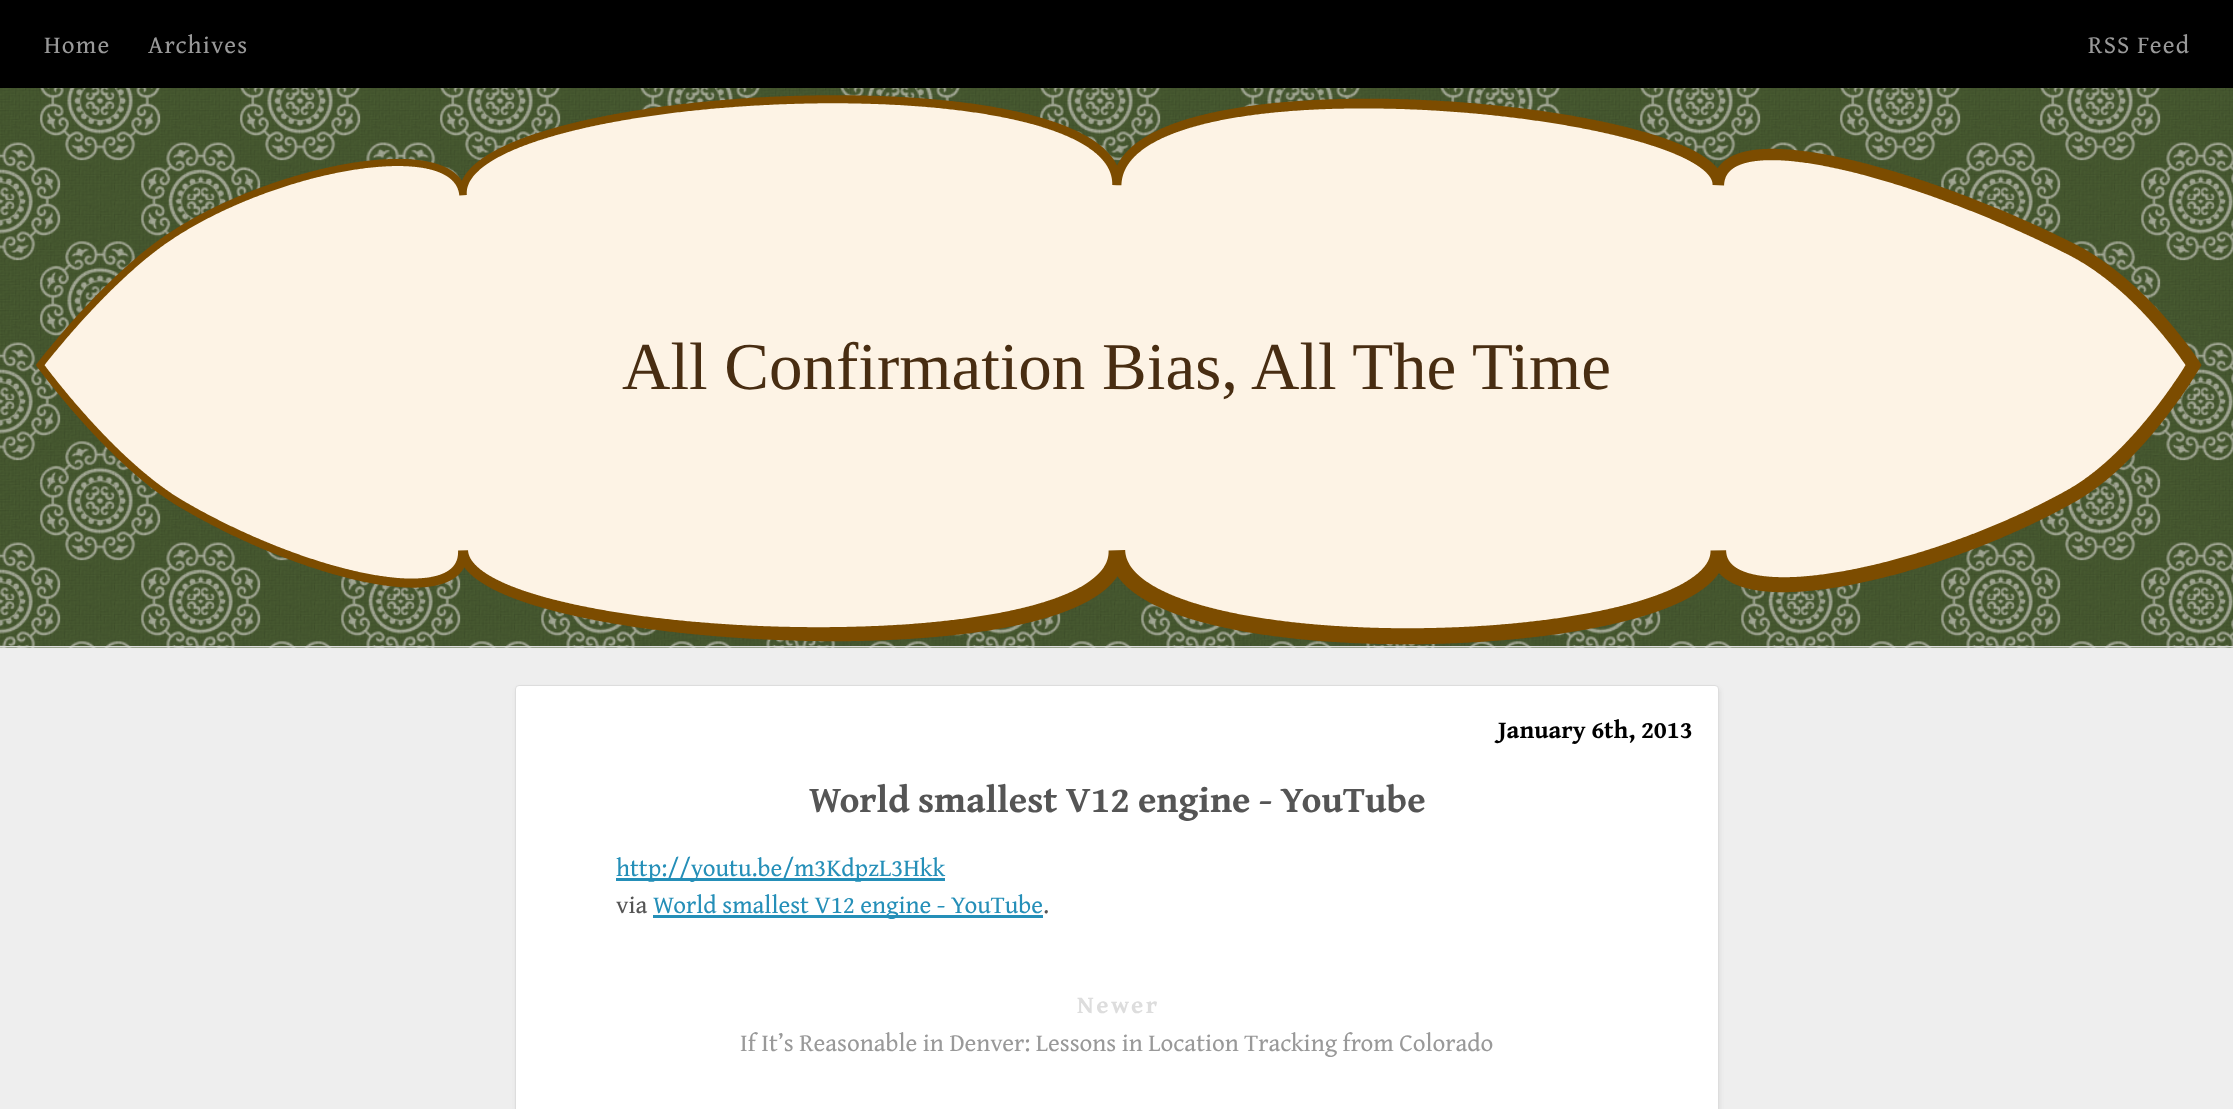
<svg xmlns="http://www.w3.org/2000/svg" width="2233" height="1109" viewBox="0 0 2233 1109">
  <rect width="100%" height="100%" fill="rgb(238,238,238)"/>
  <image x="0" y="88" width="2233" height="560" href="pic1.png"/>
  <rect x="0" y="646" width="2233" height="1" fill="rgb(221,221,221)"/>
  <rect x="0" y="0" width="2233" height="88" fill="rgb(0,0,0)"/>
  <g font-family="Gentium Book Plus" font-size="25" letter-spacing="1.25" fill="rgb(153,153,153)">
    <text x="44" y="53">Home</text>
    <text x="148" y="53">Archives</text>
    <text x="2088" y="53">RSS Feed</text>
  </g>
  <image x="36" y="95" width="2166" height="550" href="pic2.png"/>
  <text x="622" y="389" font-family="Liberation Serif" font-size="67" fill="rgb(72,45,18)">All Confirmation Bias, All The Time</text>
  <rect x="516" y="688" width="1204" height="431" rx="4" fill="rgb(221,221,221)" filter="blur(2px)"/>
  <rect x="515.5" y="685.5" width="1203" height="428" rx="3.5" fill="rgb(255,255,255)" stroke="rgb(221,221,221)"/>
  <text x="1498" y="738" font-family="Gentium Book Plus" font-size="25" font-weight="bold" fill="rgb(0,0,0)">January 6th, 2013</text>
  <text x="809" y="812" font-family="Gentium Book Plus" font-size="37.5" font-weight="bold" fill="rgb(85,85,85)">World smallest V12 engine - YouTube</text>
  <rect x="616" y="878" width="329" height="3" fill="rgb(37,143,184)"/>
  <text x="616" y="876" font-family="Gentium Book Plus" font-size="25" fill="rgb(37,143,184)">http://youtu.be/m3KdpzL3Hkk</text>
  <text x="616" y="913" font-family="Gentium Book Plus" font-size="25" fill="rgb(85,85,85)">via</text>
  <rect x="653" y="915" width="390" height="3" fill="rgb(37,143,184)"/>
  <text x="653" y="913" font-family="Gentium Book Plus" font-size="25" fill="rgb(37,143,184)">World smallest V12 engine - YouTube</text>
  <text x="1043" y="913" font-family="Gentium Book Plus" font-size="25" fill="rgb(85,85,85)">.</text>
  <text x="1077" y="1013" font-family="Gentium Book Plus" font-size="25" font-weight="bold" letter-spacing="2.5" fill="rgb(221,221,221)">Newer</text>
  <text x="740" y="1051" font-family="Gentium Book Plus" font-size="25" fill="rgb(153,153,153)">If It’s Reasonable in Denver: Lessons in Location Tracking from Colorado</text>
</svg>
